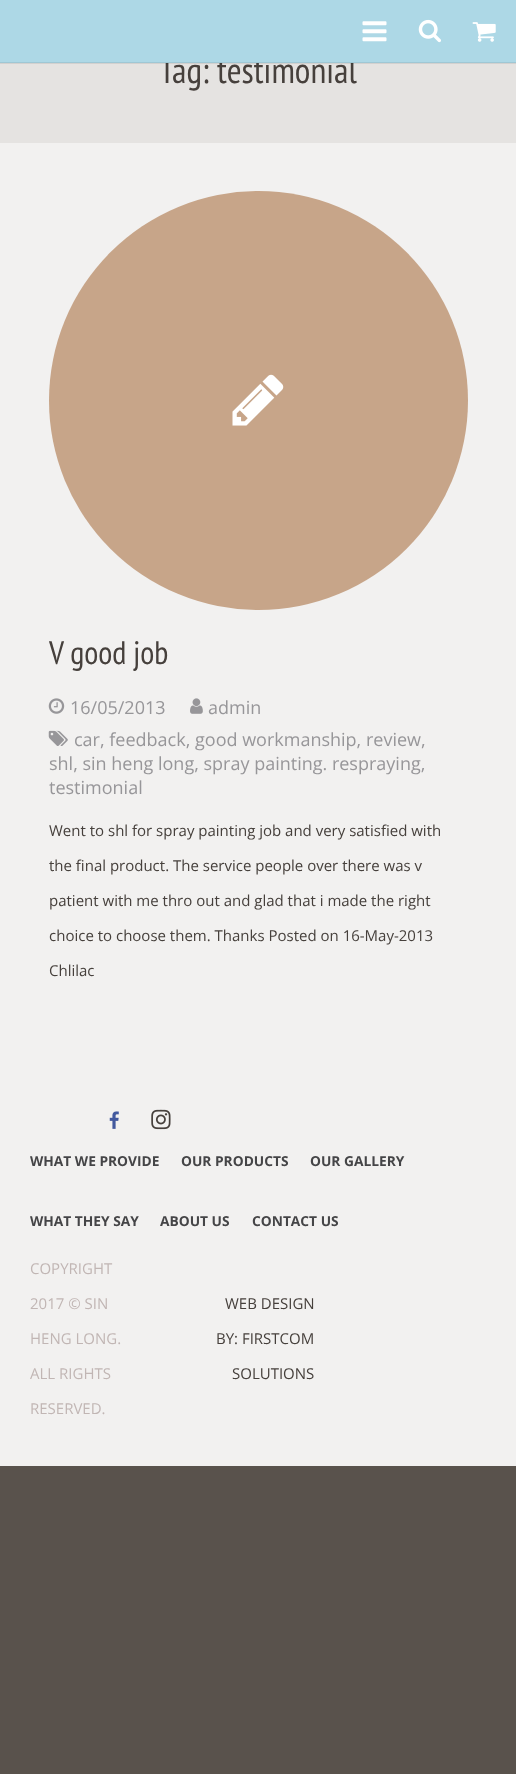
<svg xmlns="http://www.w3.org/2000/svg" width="516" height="1774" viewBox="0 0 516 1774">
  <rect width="100%" height="100%" fill="rgb(89,82,76)"/>
  <rect x="0" y="143" width="516" height="1323" fill="rgb(242,241,240)"/>
  <rect x="0" y="63" width="516" height="80" fill="rgb(229,227,225)"/>
  <text x="159" y="83" font-family="PT Sans Narrow" font-size="36" fill="rgb(70,64,60)">Tag: testimonial</text>
  <rect x="0" y="0" width="516" height="63" fill="rgb(173,216,230)"/>
  <rect x="0" y="62" width="516" height="2" fill="rgba(0,0,0,0.08)"/>
  <image x="362" y="21" width="25" height="21" href="pic1.png"/>
  <image x="418" y="19" width="23" height="24" href="pic2.png"/>
  <image x="472" y="22" width="24" height="20" href="pic3.png"/>
  <circle cx="258.5" cy="400.5" r="209.5" fill="rgb(199,165,137)"/>
  <image x="232" y="374" width="52" height="52" href="pic4.png"/>
  <text x="49" y="664" font-family="PT Sans Narrow" font-size="32.5" fill="rgb(70,64,60)">V good job</text>
  <image x="48" y="698" width="17" height="16" href="pic5.png"/>
  <text x="70" y="714" font-family="Open Sans" font-size="18" fill="rgb(151,150,153)">16/05/2013</text>
  <image x="190" y="698" width="13" height="16" href="pic6.png"/>
  <text x="208" y="714" font-family="Open Sans" font-size="18" fill="rgb(151,150,153)">admin</text>
  <image x="48" y="730" width="20" height="16" href="pic7.png"/>
  <g font-family="Open Sans" font-size="18" fill="rgb(151,150,153)">
    <text x="74" y="746">car, feedback, good workmanship, review,</text>
    <text>
      <tspan x="49" y="770">shl, sin heng long, spray painting. respraying,</tspan>
      <tspan x="49" y="794">testimonial</tspan>
    </text>
  </g>
  <g font-family="Open Sans" font-size="15" fill="rgb(70,64,60)">
    <text x="49" y="836">Went to shl for spray painting job and very satisfied with</text>
    <text x="49" y="871">the final product. The service people over there was v</text>
    <text x="49" y="906">patient with me thro out and glad that i made the right</text>
    <text x="49" y="941">choice to choose them. Thanks Posted on 16-May-2013</text>
    <text x="49" y="976">Chlilac</text>
  </g>
  <image x="109" y="1111" width="10" height="18" href="pic8.png"/>
  <image x="151" y="1109" width="20" height="21" href="pic9.png"/>
  <g font-family="Open Sans" font-size="13.75" font-weight="bold" fill="rgb(69,69,71)">
    <text x="30" y="1166">WHAT WE PROVIDE</text>
    <text x="181" y="1166">OUR PRODUCTS</text>
    <text x="310" y="1166">OUR GALLERY</text>
    <text x="30" y="1226">WHAT THEY SAY</text>
    <text x="160" y="1226">ABOUT US</text>
    <text x="252" y="1226">CONTACT US</text>
  </g>
  <g font-family="Open Sans" font-size="15" fill="rgb(193,182,180)">
    <text x="30" y="1274">COPYRIGHT</text>
    <text x="30" y="1309">2017 © SIN</text>
    <text x="30" y="1344">HENG LONG.</text>
    <text x="30" y="1379">ALL RIGHTS</text>
    <text x="30" y="1414">RESERVED.</text>
  </g>
  <g font-family="Open Sans" font-size="15" fill="rgb(70,64,60)">
    <text x="225" y="1309">WEB DESIGN</text>
    <text x="216" y="1344">BY: FIRSTCOM</text>
    <text x="232" y="1379">SOLUTIONS</text>
  </g>
</svg>
